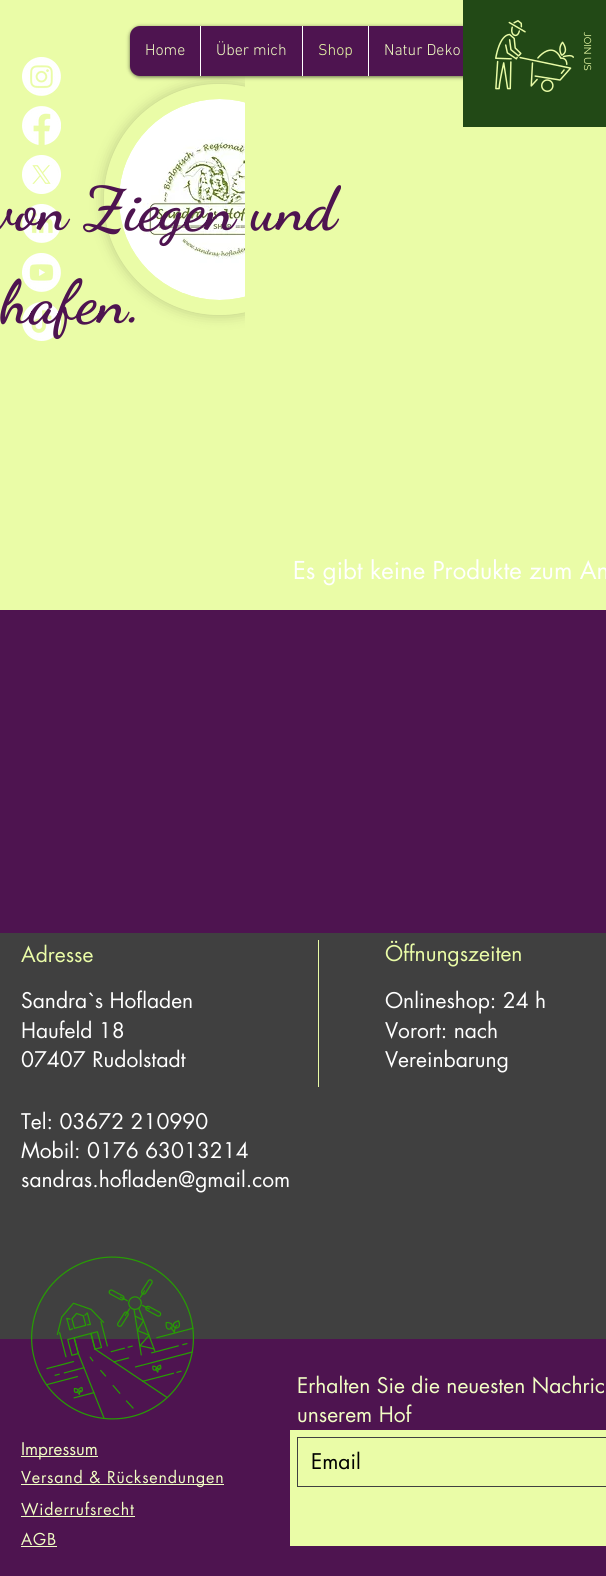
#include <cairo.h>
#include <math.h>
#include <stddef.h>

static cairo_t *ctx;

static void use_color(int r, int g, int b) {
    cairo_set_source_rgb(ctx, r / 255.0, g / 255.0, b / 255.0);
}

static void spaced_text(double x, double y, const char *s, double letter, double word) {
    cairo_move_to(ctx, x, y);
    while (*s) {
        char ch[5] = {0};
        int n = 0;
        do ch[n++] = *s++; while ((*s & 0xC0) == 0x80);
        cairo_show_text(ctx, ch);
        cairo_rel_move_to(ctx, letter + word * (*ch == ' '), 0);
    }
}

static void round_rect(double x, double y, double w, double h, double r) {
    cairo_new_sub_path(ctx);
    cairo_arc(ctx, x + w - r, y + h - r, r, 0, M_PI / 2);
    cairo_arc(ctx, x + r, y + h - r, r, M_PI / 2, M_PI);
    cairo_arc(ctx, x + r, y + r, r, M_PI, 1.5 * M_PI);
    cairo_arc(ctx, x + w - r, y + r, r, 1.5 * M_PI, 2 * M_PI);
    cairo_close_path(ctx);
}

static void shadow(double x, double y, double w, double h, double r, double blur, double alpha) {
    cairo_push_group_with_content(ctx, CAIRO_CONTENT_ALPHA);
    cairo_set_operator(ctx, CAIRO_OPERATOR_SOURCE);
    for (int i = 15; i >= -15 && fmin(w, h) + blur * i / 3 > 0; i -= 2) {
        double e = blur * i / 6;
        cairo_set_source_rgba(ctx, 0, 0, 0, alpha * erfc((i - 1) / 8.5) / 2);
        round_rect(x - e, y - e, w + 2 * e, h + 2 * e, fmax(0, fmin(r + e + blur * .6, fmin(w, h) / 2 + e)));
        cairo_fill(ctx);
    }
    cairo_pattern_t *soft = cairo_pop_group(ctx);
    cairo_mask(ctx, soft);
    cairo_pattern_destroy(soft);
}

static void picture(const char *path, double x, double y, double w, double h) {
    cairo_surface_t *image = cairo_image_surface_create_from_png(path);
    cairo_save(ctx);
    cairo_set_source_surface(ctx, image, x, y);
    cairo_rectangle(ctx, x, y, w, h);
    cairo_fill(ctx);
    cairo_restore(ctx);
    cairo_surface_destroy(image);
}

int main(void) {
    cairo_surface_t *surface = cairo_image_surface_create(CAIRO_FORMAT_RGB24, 606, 1576);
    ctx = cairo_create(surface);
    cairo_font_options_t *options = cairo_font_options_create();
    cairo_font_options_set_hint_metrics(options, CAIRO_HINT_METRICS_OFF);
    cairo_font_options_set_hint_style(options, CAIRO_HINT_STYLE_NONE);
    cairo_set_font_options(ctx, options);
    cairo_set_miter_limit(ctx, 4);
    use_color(78, 20, 80);
    cairo_paint(ctx);
    use_color(234, 252, 167);
    cairo_rectangle(ctx, 0, 0, 245, 610);
    cairo_fill(ctx);
    picture("img1.png", 22, 57, 39, 39);
    picture("img2.png", 22, 106, 39, 39);
    picture("img3.png", 22, 155, 39, 39);
    picture("img4.png", 22, 204, 39, 39);
    picture("img5.png", 22, 253, 39, 39);
    picture("img6.png", 22, 302, 39, 39);
    cairo_save(ctx);
    cairo_set_fill_rule(ctx, CAIRO_FILL_RULE_EVEN_ODD);
    cairo_new_path(ctx);
    cairo_move_to(ctx, 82, 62);
    cairo_line_to(ctx, 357, 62);
    cairo_line_to(ctx, 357, 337);
    cairo_line_to(ctx, 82, 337);
    cairo_close_path(ctx);
    cairo_move_to(ctx, 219.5, 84);
    cairo_curve_to(ctx, 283.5, 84, 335, 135.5, 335, 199.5);
    cairo_curve_to(ctx, 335, 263.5, 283.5, 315, 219.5, 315);
    cairo_curve_to(ctx, 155.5, 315, 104, 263.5, 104, 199.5);
    cairo_curve_to(ctx, 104, 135.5, 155.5, 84, 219.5, 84);
    cairo_close_path(ctx);
    cairo_clip(ctx);
    use_color(0, 0, 0);
    shadow(104, 84, 231, 231, 115.5, 7, 0.2);
    cairo_restore(ctx);
    picture("img7.png", 119, 99, 126, 201);
    cairo_rectangle(ctx, 245, 0, 361, 610);
    cairo_fill(ctx);
    use_color(0, 0, 0);
    shadow(130, 27, 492, 50, 10, 2, 0.6);
    use_color(78, 20, 80);
    round_rect(130, 26, 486, 50, 10);
    cairo_fill(ctx);
    cairo_select_font_face(ctx, "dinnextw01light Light", CAIRO_FONT_SLANT_NORMAL, CAIRO_FONT_WEIGHT_NORMAL);
    cairo_set_font_size(ctx, 16);
    use_color(241, 254, 196);
    cairo_move_to(ctx, 145, 55);
    cairo_show_text(ctx, "Home");
    use_color(255, 255, 255);
    cairo_rectangle(ctx, 200, 26, 1, 50);
    cairo_fill(ctx);
    use_color(241, 254, 196);
    cairo_move_to(ctx, 216, 55);
    cairo_show_text(ctx, "Über mich");
    use_color(255, 255, 255);
    cairo_rectangle(ctx, 302, 26, 1, 50);
    cairo_fill(ctx);
    use_color(234, 252, 167);
    cairo_move_to(ctx, 318, 55);
    cairo_show_text(ctx, "Shop");
    use_color(255, 255, 255);
    cairo_rectangle(ctx, 368, 26, 1, 50);
    cairo_fill(ctx);
    use_color(241, 254, 196);
    cairo_move_to(ctx, 384, 55);
    cairo_show_text(ctx, "Natur Deko");
    cairo_select_font_face(ctx, "Dancing Script", CAIRO_FONT_SLANT_NORMAL, CAIRO_FONT_WEIGHT_BOLD);
    cairo_set_font_size(ctx, 61);
    use_color(78, 20, 80);
    cairo_move_to(ctx, -9, 229);
    cairo_show_text(ctx, "von Ziegen und");
    cairo_move_to(ctx, 0, 322);
    cairo_show_text(ctx, "hafen.");
    use_color(34, 73, 22);
    cairo_rectangle(ctx, 463, 0, 143, 127);
    cairo_fill(ctx);
    picture("img8.png", 495, 20, 79, 72);
    cairo_select_font_face(ctx, "Raleway", CAIRO_FONT_SLANT_NORMAL, CAIRO_FONT_WEIGHT_NORMAL);
    cairo_set_font_size(ctx, 10);
    use_color(234, 252, 167);
    cairo_save(ctx);
    cairo_translate(ctx, 584, 32);
    cairo_rotate(ctx, 90 * M_PI / 180);
    cairo_move_to(ctx, 0, 0);
    cairo_show_text(ctx, "JOIN US");
    cairo_restore(ctx);
    cairo_select_font_face(ctx, "futura", CAIRO_FONT_SLANT_NORMAL, CAIRO_FONT_WEIGHT_NORMAL);
    cairo_set_font_size(ctx, 24);
    use_color(255, 255, 255);
    cairo_move_to(ctx, 293, 579);
    cairo_show_text(ctx, "Es gibt keine Produkte zum An");
    use_color(64, 64, 64);
    cairo_rectangle(ctx, 0, 933, 606, 406);
    cairo_fill(ctx);
    cairo_set_font_size(ctx, 21);
    use_color(234, 252, 167);
    cairo_move_to(ctx, 21, 962);
    cairo_show_text(ctx, "Adresse");
    cairo_rectangle(ctx, 318, 940, 1, 147);
    cairo_fill(ctx);
    cairo_move_to(ctx, 385, 961);
    cairo_show_text(ctx, "Öffnungszeiten");
    use_color(255, 255, 255);
    cairo_move_to(ctx, 21, 1008);
    cairo_show_text(ctx, "Sandra`s Hofladen");
    cairo_move_to(ctx, 21, 1038);
    cairo_show_text(ctx, "Haufeld 18");
    cairo_move_to(ctx, 21, 1067);
    cairo_show_text(ctx, "07407 Rudolstadt");
    cairo_move_to(ctx, 385, 1008);
    cairo_show_text(ctx, "Onlineshop: 24 h");
    cairo_move_to(ctx, 385, 1038);
    cairo_show_text(ctx, "Vorort: nach");
    cairo_move_to(ctx, 385, 1067);
    cairo_show_text(ctx, "Vereinbarung");
    cairo_move_to(ctx, 21, 1129);
    cairo_show_text(ctx, "Tel: 03672 210990");
    cairo_move_to(ctx, 21, 1158);
    cairo_show_text(ctx, "Mobil: 0176 63013214");
    cairo_move_to(ctx, 21, 1187);
    cairo_show_text(ctx, "sandras.hofladen@gmail.com");
    picture("img9.png", 31, 1256, 163, 164);
    use_color(241, 254, 196);
    cairo_move_to(ctx, 297, 1393);
    cairo_show_text(ctx, "Erhalten Sie die neuesten Nachric");
    cairo_move_to(ctx, 297, 1422);
    cairo_show_text(ctx, "unserem Hof");
    cairo_rectangle(ctx, 21, 1456, 77, 1);
    cairo_fill(ctx);
    cairo_set_font_size(ctx, 17);
    cairo_move_to(ctx, 21, 1455);
    cairo_show_text(ctx, "Impressum");
    use_color(234, 252, 167);
    cairo_rectangle(ctx, 290, 1430, 316, 116);
    cairo_fill(ctx);
    cairo_rectangle(ctx, 297.5, 1437.5, 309, 49);
    use_color(64, 64, 64);
    cairo_set_line_width(ctx, 1);
    cairo_stroke(ctx);
    cairo_set_font_size(ctx, 21);
    use_color(0, 0, 0);
    cairo_move_to(ctx, 311, 1469);
    cairo_show_text(ctx, "Email");
    use_color(241, 254, 196);
    cairo_rectangle(ctx, 21, 1484, 203, 1);
    cairo_fill(ctx);
    cairo_set_font_size(ctx, 16);
    spaced_text(21, 1483, "Versand & Rücksendungen", 0.8, 0);
    spaced_text(21, 1515, "Widerrufsrecht", 0.8, 0);
    cairo_rectangle(ctx, 21, 1516, 114, 1);
    cairo_fill(ctx);
    spaced_text(21, 1545, "AGB", 0.8, 0);
    cairo_rectangle(ctx, 21, 1546, 36, 1);
    cairo_fill(ctx);
    cairo_surface_write_to_png(surface, "result.png");
    cairo_font_options_destroy(options);
    cairo_destroy(ctx);
    cairo_surface_destroy(surface);
    return 0;
}
